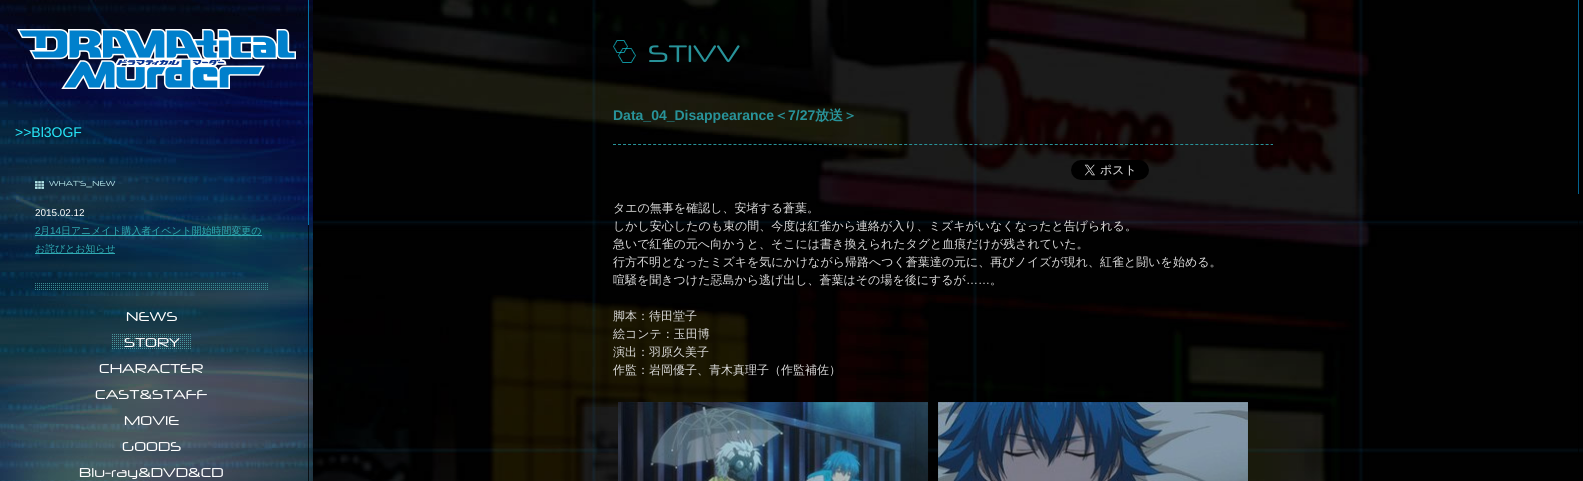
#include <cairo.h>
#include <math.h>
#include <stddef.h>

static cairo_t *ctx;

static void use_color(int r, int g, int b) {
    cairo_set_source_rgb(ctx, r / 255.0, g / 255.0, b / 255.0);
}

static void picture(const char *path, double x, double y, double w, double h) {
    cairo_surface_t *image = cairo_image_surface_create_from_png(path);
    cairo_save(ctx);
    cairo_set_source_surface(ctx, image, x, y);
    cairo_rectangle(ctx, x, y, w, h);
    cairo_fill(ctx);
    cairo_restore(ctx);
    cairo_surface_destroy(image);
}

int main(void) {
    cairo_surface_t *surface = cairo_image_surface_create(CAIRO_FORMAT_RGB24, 1583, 481);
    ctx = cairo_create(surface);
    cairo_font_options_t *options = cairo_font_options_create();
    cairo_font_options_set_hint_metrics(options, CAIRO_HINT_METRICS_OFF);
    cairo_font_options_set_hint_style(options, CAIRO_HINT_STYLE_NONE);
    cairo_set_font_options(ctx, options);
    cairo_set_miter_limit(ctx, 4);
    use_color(255, 255, 255);
    cairo_paint(ctx);
    picture("img1.png", 0, 0, 313, 481);
    picture("img2.png", 17, 29, 279, 60);
    cairo_select_font_face(ctx, "Liberation Sans", CAIRO_FONT_SLANT_NORMAL, CAIRO_FONT_WEIGHT_NORMAL);
    cairo_set_font_size(ctx, 14);
    use_color(38, 233, 251);
    cairo_move_to(ctx, 15, 137);
    cairo_show_text(ctx, ">>Bl3OGF");
    picture("img3.png", 35, 181, 9, 8);
    cairo_select_font_face(ctx, "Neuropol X", CAIRO_FONT_SLANT_NORMAL, CAIRO_FONT_WEIGHT_NORMAL);
    cairo_set_font_size(ctx, 8);
    use_color(179, 228, 231);
    cairo_move_to(ctx, 49, 186);
    cairo_show_text(ctx, "WHAT'S_NEW");
    cairo_select_font_face(ctx, "Liberation Sans", CAIRO_FONT_SLANT_NORMAL, CAIRO_FONT_WEIGHT_NORMAL);
    cairo_set_font_size(ctx, 9.9);
    use_color(255, 255, 255);
    cairo_move_to(ctx, 35, 216);
    cairo_show_text(ctx, "2015.02.12");
    use_color(47, 171, 179);
    cairo_move_to(ctx, 35, 234);
    cairo_show_text(ctx, "2");
    cairo_rectangle(ctx, 35, 235, 227, 1);
    cairo_fill(ctx);
    cairo_select_font_face(ctx, "WenQuanYi Zen Hei Medium", CAIRO_FONT_SLANT_NORMAL, CAIRO_FONT_WEIGHT_NORMAL);
    cairo_move_to(ctx, 40, 234);
    cairo_show_text(ctx, "月");
    cairo_select_font_face(ctx, "Liberation Sans", CAIRO_FONT_SLANT_NORMAL, CAIRO_FONT_WEIGHT_NORMAL);
    cairo_move_to(ctx, 50, 234);
    cairo_show_text(ctx, "14");
    cairo_select_font_face(ctx, "WenQuanYi Zen Hei Medium", CAIRO_FONT_SLANT_NORMAL, CAIRO_FONT_WEIGHT_NORMAL);
    cairo_move_to(ctx, 61, 234);
    cairo_show_text(ctx, "日アニメイト購入者イベント開始時間変更の");
    cairo_rectangle(ctx, 35, 253, 80, 1);
    cairo_fill(ctx);
    cairo_move_to(ctx, 35, 252);
    cairo_show_text(ctx, "お詫びとお知らせ");
    picture("img4.png", 35, 283, 233, 7);
    cairo_select_font_face(ctx, "Neuropol X", CAIRO_FONT_SLANT_NORMAL, CAIRO_FONT_WEIGHT_NORMAL);
    cairo_set_font_size(ctx, 14);
    use_color(255, 255, 255);
    cairo_move_to(ctx, 126, 321);
    cairo_show_text(ctx, "NEWS");
    picture("img5.png", 112, 334, 79, 15);
    cairo_move_to(ctx, 124, 347);
    cairo_show_text(ctx, "STORY");
    cairo_move_to(ctx, 99, 373);
    cairo_show_text(ctx, "CHARACTER");
    cairo_move_to(ctx, 95, 399);
    cairo_show_text(ctx, "CAST&STAFF");
    cairo_move_to(ctx, 124, 425);
    cairo_show_text(ctx, "MOVIE");
    cairo_move_to(ctx, 122, 451);
    cairo_show_text(ctx, "GOODS");
    cairo_move_to(ctx, 79, 477);
    cairo_show_text(ctx, "Blu-ray&DVD&CD");
    cairo_set_source_rgba(ctx, 0, 0, 0, 0.75);
    cairo_rectangle(ctx, 308, 0, 1, 481);
    cairo_fill(ctx);
    cairo_set_source_rgba(ctx, 0.016, 0.592, 0.863, 0.75);
    cairo_rectangle(ctx, 308, 0, 1, 225);
    cairo_fill(ctx);
    picture("img6.png", 313, 0, 1270, 481);
    picture("img7.png", 613, 40, 23, 23);
    cairo_set_font_size(ctx, 26);
    use_color(40, 147, 154);
    cairo_move_to(ctx, 648, 62);
    cairo_show_text(ctx, "ST1VV");
    cairo_new_path(ctx);
    cairo_move_to(ctx, 613, 144.5);
    cairo_line_to(ctx, 1273, 144.5);
    cairo_set_line_width(ctx, 1);
    cairo_set_dash(ctx, (double[]){3, 2.02}, 2, 0);
    cairo_stroke(ctx);
    cairo_select_font_face(ctx, "Liberation Sans", CAIRO_FONT_SLANT_NORMAL, CAIRO_FONT_WEIGHT_BOLD);
    cairo_set_font_size(ctx, 14);
    cairo_move_to(ctx, 613, 120);
    cairo_show_text(ctx, "Data_04_Disappearance");
    cairo_select_font_face(ctx, "WenQuanYi Zen Hei", CAIRO_FONT_SLANT_NORMAL, CAIRO_FONT_WEIGHT_BOLD);
    cairo_move_to(ctx, 774, 120);
    cairo_show_text(ctx, "＜");
    cairo_select_font_face(ctx, "Liberation Sans", CAIRO_FONT_SLANT_NORMAL, CAIRO_FONT_WEIGHT_BOLD);
    cairo_move_to(ctx, 788, 120);
    cairo_show_text(ctx, "7/27");
    cairo_select_font_face(ctx, "WenQuanYi Zen Hei", CAIRO_FONT_SLANT_NORMAL, CAIRO_FONT_WEIGHT_BOLD);
    cairo_move_to(ctx, 815, 120);
    cairo_show_text(ctx, "放送＞");
    picture("img8.png", 1071, 160, 78, 20);
    cairo_select_font_face(ctx, "WenQuanYi Zen Hei Medium", CAIRO_FONT_SLANT_NORMAL, CAIRO_FONT_WEIGHT_NORMAL);
    cairo_set_font_size(ctx, 12);
    use_color(219, 219, 219);
    cairo_move_to(ctx, 613, 212);
    cairo_show_text(ctx, "タエの無事を確認し、安堵する蒼葉。");
    cairo_move_to(ctx, 613, 230);
    cairo_show_text(ctx, "しかし安心したのも束の間、今度は紅雀から連絡が入り、ミズキがいなくなったと告げられる。");
    cairo_move_to(ctx, 613, 248);
    cairo_show_text(ctx, "急いで紅雀の元へ向かうと、そこには書き換えられたタグと血痕だけが残されていた。");
    cairo_move_to(ctx, 613, 266);
    cairo_show_text(ctx, "行方不明となったミズキを気にかけながら帰路へつく蒼葉達の元に、再びノイズが現れ、紅雀と闘いを始める。");
    cairo_move_to(ctx, 613, 284);
    cairo_show_text(ctx, "喧騒を聞きつけた惡島から逃げ出し、蒼葉はその場を後にするが");
    cairo_select_font_face(ctx, "Liberation Sans", CAIRO_FONT_SLANT_NORMAL, CAIRO_FONT_WEIGHT_NORMAL);
    cairo_move_to(ctx, 966, 284);
    cairo_show_text(ctx, "……");
    cairo_select_font_face(ctx, "WenQuanYi Zen Hei Medium", CAIRO_FONT_SLANT_NORMAL, CAIRO_FONT_WEIGHT_NORMAL);
    cairo_move_to(ctx, 990, 284);
    cairo_show_text(ctx, "。");
    cairo_move_to(ctx, 613, 320);
    cairo_show_text(ctx, "脚本：待田堂子");
    cairo_move_to(ctx, 613, 338);
    cairo_show_text(ctx, "絵コンテ：玉田博");
    cairo_move_to(ctx, 613, 356);
    cairo_show_text(ctx, "演出：羽原久美子");
    cairo_move_to(ctx, 613, 374);
    cairo_show_text(ctx, "作監：岩岡優子、青木真理子（作監補佐）");
    picture("img9.png", 618, 402, 310, 79);
    picture("img10.png", 938, 402, 310, 79);
    use_color(3, 98, 142);
    cairo_rectangle(ctx, 1578, 0, 1, 194);
    cairo_fill(ctx);
    cairo_set_source_rgba(ctx, 0, 0, 0, 0.75);
    cairo_rectangle(ctx, 1578, 220, 1, 233);
    cairo_fill(ctx);
    cairo_surface_write_to_png(surface, "result.png");
    cairo_font_options_destroy(options);
    cairo_destroy(ctx);
    cairo_surface_destroy(surface);
    return 0;
}
